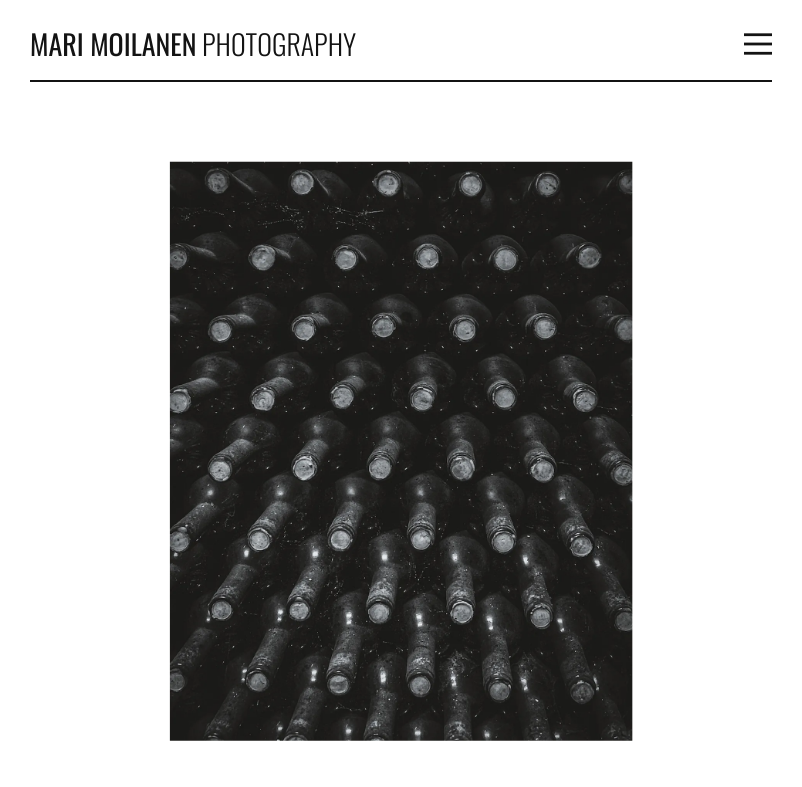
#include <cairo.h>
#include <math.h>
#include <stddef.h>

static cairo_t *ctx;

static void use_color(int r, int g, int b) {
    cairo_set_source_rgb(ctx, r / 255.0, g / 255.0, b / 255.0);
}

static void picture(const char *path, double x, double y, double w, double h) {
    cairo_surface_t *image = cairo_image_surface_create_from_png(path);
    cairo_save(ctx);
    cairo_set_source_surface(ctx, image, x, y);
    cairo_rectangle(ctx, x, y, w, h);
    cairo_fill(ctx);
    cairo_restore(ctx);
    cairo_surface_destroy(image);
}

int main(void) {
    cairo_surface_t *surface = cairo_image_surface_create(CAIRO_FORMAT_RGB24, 802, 787);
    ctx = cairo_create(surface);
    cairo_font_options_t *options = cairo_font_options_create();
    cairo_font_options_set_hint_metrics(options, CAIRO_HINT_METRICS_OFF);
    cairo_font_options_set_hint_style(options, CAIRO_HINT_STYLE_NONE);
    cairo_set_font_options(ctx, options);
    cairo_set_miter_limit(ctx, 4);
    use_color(255, 255, 255);
    cairo_paint(ctx);
    use_color(19, 19, 19);
    cairo_rectangle(ctx, 30, 80, 742, 2);
    cairo_fill(ctx);
    cairo_select_font_face(ctx, "Oswald", CAIRO_FONT_SLANT_NORMAL, CAIRO_FONT_WEIGHT_NORMAL);
    cairo_set_font_size(ctx, 28);
    cairo_move_to(ctx, 30, 56);
    cairo_show_text(ctx, "MARI MOILANEN");
    cairo_select_font_face(ctx, "Oswald Light", CAIRO_FONT_SLANT_NORMAL, CAIRO_FONT_WEIGHT_NORMAL);
    cairo_move_to(ctx, 202, 56);
    cairo_show_text(ctx, "PHOTOGRAPHY");
    picture("img1.png", 744, 33, 28, 22);
    picture("img2.png", 169, 161, 464, 580);
    cairo_surface_write_to_png(surface, "result.png");
    cairo_font_options_destroy(options);
    cairo_destroy(ctx);
    cairo_surface_destroy(surface);
    return 0;
}
